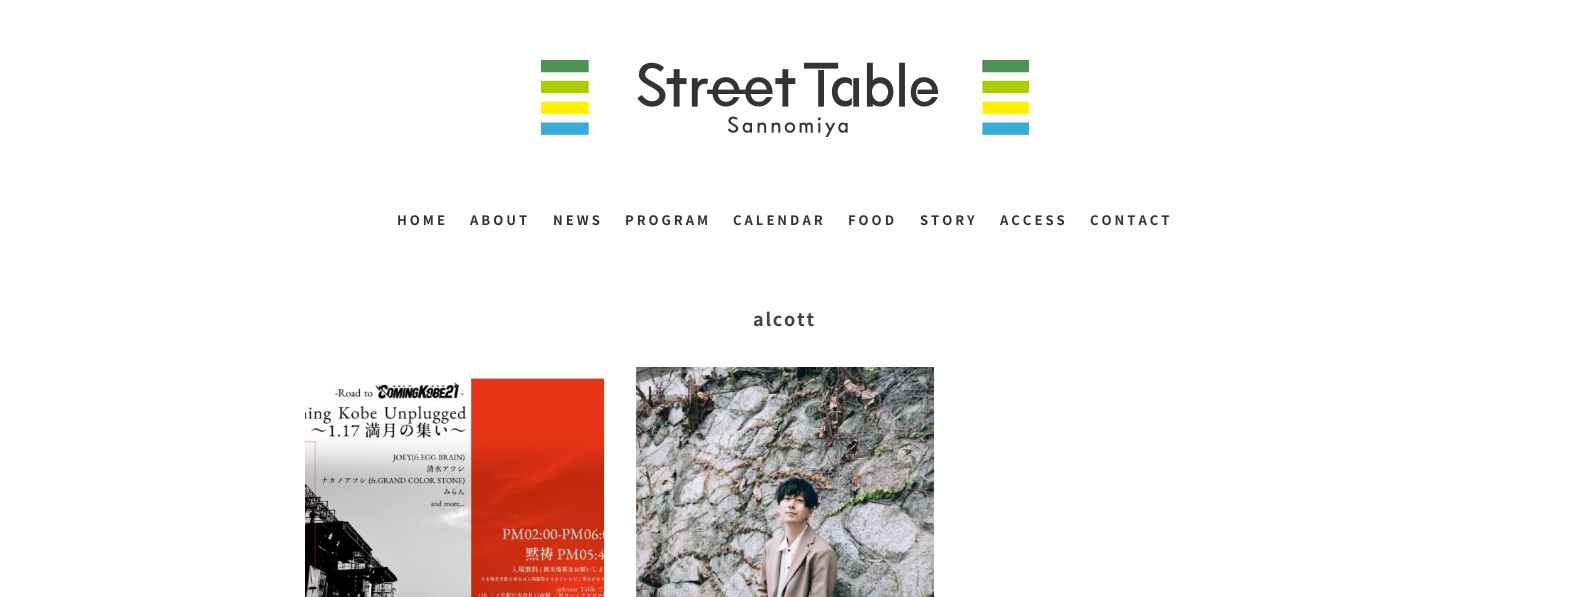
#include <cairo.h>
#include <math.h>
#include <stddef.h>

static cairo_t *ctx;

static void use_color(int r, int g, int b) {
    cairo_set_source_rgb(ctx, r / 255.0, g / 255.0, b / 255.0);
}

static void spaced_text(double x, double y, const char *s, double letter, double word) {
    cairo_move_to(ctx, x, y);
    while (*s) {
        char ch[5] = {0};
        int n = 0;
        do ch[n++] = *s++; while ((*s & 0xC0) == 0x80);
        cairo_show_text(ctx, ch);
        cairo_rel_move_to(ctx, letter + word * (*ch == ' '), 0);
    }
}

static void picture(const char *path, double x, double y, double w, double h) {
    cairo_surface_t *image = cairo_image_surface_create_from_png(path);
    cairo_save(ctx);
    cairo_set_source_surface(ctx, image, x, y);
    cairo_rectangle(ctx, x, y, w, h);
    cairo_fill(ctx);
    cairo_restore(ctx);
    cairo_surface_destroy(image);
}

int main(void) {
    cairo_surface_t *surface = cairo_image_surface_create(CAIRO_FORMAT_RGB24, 1569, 597);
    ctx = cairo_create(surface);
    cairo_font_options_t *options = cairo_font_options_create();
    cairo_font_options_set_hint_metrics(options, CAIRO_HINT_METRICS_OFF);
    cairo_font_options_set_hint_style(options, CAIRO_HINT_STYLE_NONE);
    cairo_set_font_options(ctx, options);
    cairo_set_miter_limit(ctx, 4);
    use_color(255, 255, 255);
    cairo_paint(ctx);
    picture("img1.png", 541, 60, 488, 77);
    cairo_select_font_face(ctx, "Noto Sans JP", CAIRO_FONT_SLANT_NORMAL, CAIRO_FONT_WEIGHT_BOLD);
    cairo_set_font_size(ctx, 13);
    use_color(51, 51, 51);
    spaced_text(397, 225, "HOME", 3, 0);
    spaced_text(470, 225, "ABOUT", 3, 0);
    spaced_text(553, 225, "NEWS", 3, 0);
    spaced_text(625, 225, "PROGRAM", 3, 0);
    spaced_text(733, 225, "CALENDAR", 3, 0);
    spaced_text(848, 225, "FOOD", 3, 0);
    spaced_text(920, 225, "STORY", 3, 0);
    spaced_text(1000, 225, "ACCESS", 3, 0);
    spaced_text(1090, 225, "CONTACT", 3, 0);
    cairo_set_font_size(ctx, 18);
    use_color(68, 68, 68);
    spaced_text(753, 326, "alcott", 1.75, 0);
    picture("img2.png", 305, 378, 299, 219);
    picture("img3.png", 636, 367, 298, 230);
    cairo_surface_write_to_png(surface, "result.png");
    cairo_font_options_destroy(options);
    cairo_destroy(ctx);
    cairo_surface_destroy(surface);
    return 0;
}
